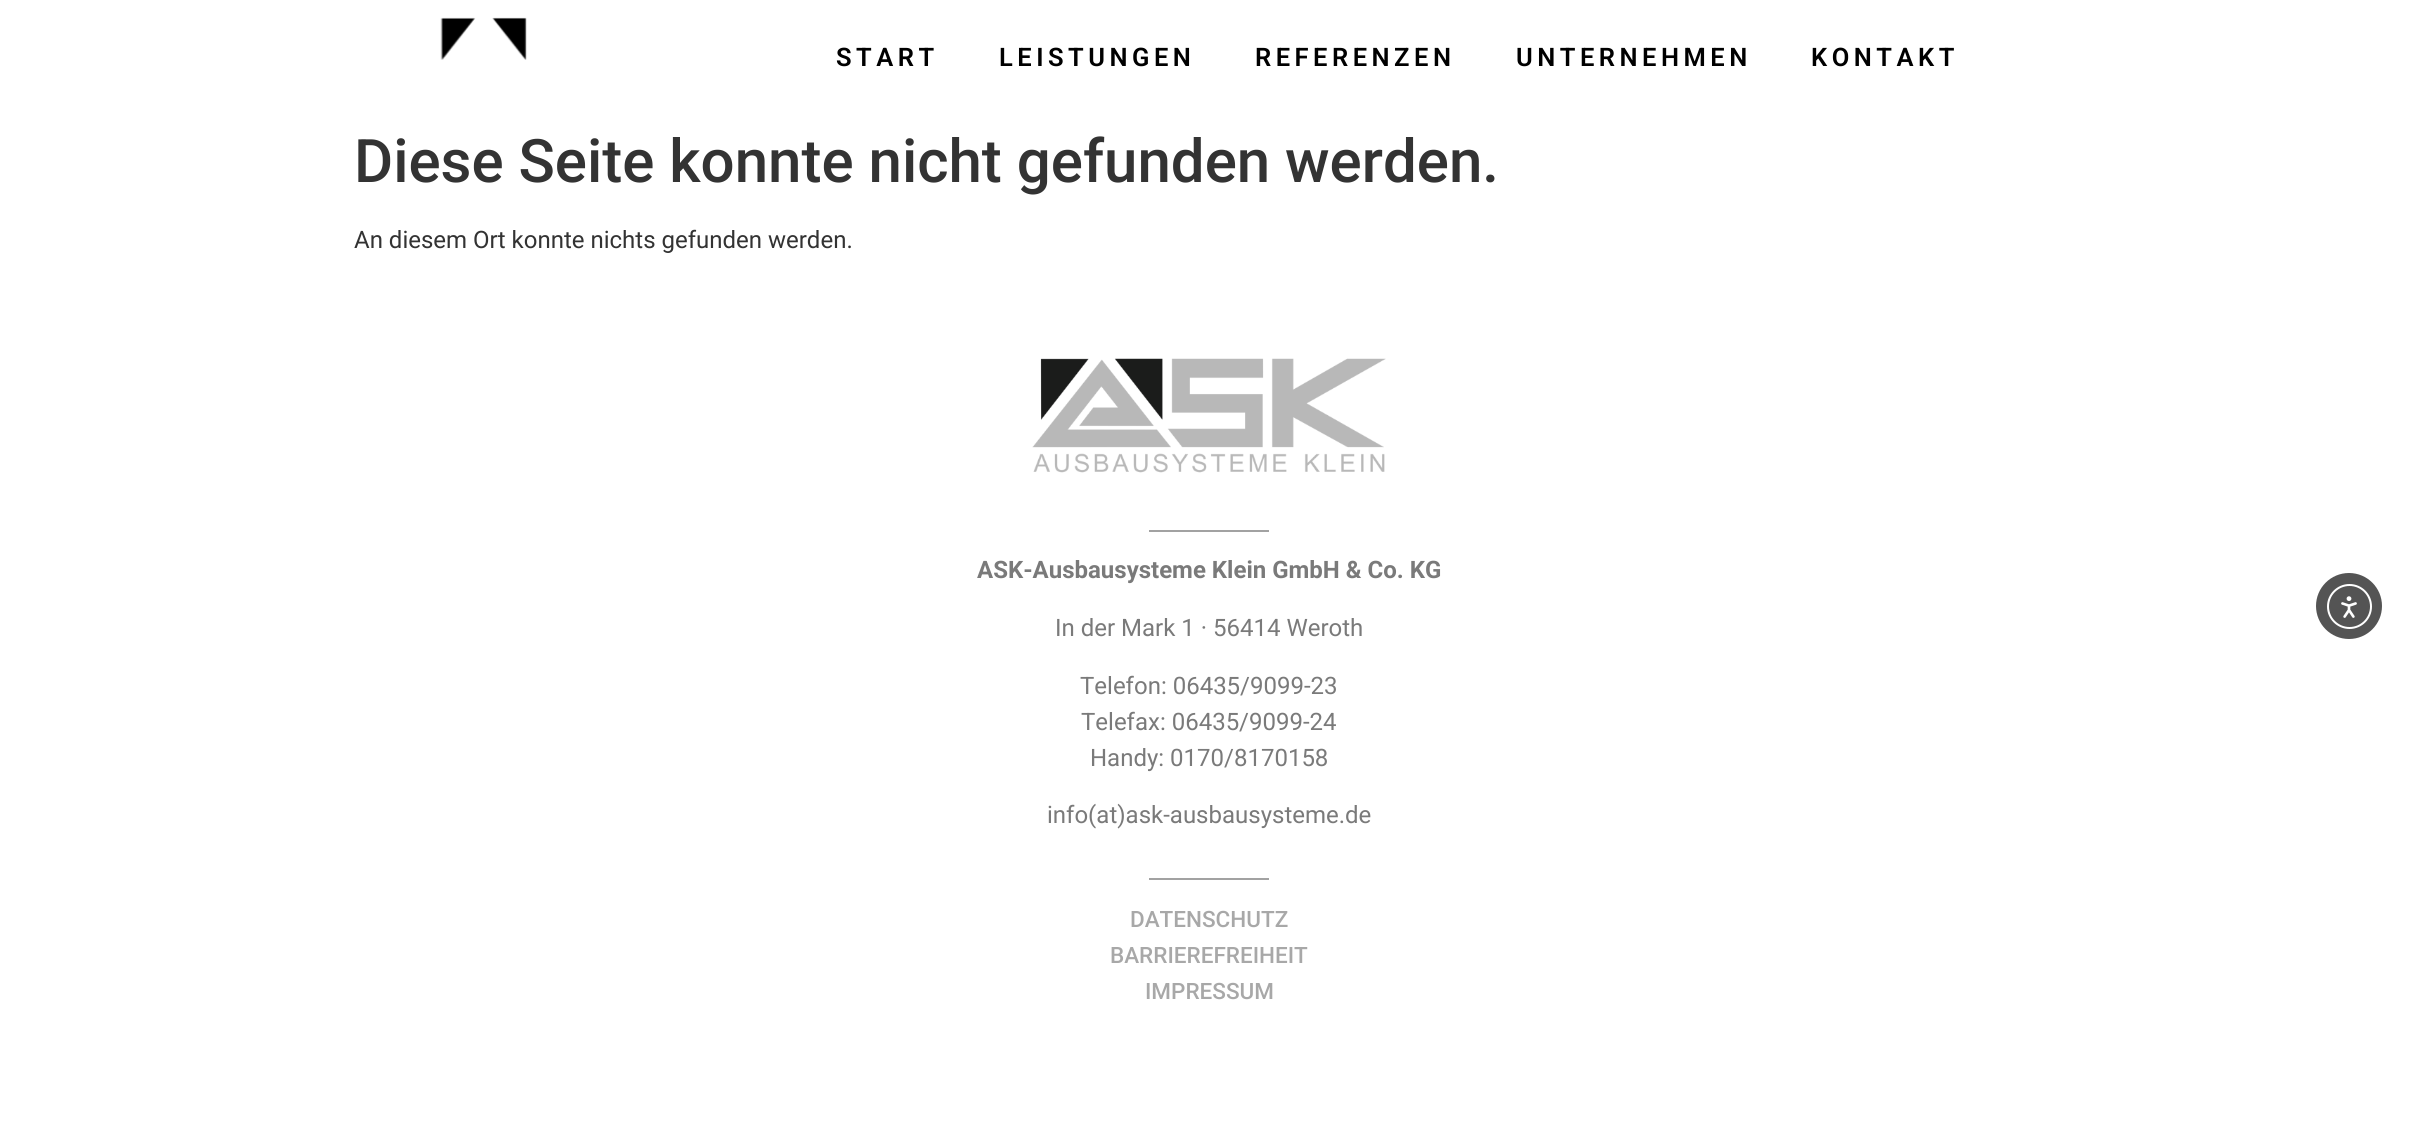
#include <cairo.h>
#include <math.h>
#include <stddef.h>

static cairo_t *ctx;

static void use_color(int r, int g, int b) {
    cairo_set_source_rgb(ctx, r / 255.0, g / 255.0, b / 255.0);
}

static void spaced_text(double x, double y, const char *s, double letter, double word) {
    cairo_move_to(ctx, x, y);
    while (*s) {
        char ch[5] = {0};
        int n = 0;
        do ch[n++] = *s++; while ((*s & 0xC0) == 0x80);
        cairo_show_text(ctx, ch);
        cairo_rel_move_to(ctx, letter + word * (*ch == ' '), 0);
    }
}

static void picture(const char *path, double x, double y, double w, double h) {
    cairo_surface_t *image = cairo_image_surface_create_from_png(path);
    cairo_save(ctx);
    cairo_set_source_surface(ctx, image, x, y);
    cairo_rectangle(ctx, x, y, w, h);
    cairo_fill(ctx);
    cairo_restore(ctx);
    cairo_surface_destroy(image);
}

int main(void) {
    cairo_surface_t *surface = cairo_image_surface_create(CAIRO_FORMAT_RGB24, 2417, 1145);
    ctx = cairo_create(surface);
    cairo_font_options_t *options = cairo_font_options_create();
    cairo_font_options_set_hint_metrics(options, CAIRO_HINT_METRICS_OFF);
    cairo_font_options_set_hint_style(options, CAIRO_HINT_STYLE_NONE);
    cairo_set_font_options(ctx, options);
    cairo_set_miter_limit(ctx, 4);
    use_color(255, 255, 255);
    cairo_paint(ctx);
    picture("img1.png", 440, 17, 87, 43);
    cairo_select_font_face(ctx, "Roboto SemiBold", CAIRO_FONT_SLANT_NORMAL, CAIRO_FONT_WEIGHT_NORMAL);
    cairo_set_font_size(ctx, 25.5);
    use_color(0, 0, 0);
    spaced_text(836, 66, "START", 4.5, 0);
    spaced_text(999, 66, "LEISTUNGEN", 4.5, 0);
    spaced_text(1255, 66, "REFERENZEN", 4.5, 0);
    spaced_text(1516, 66, "UNTERNEHMEN", 4.5, 0);
    spaced_text(1811, 66, "KONTAKT", 4.5, 0);
    cairo_select_font_face(ctx, "Roboto Medium", CAIRO_FONT_SLANT_NORMAL, CAIRO_FONT_WEIGHT_NORMAL);
    cairo_set_font_size(ctx, 60);
    use_color(51, 51, 51);
    cairo_move_to(ctx, 354, 182);
    cairo_show_text(ctx, "Diese Seite konnte nicht gefunden werden.");
    cairo_select_font_face(ctx, "Roboto", CAIRO_FONT_SLANT_NORMAL, CAIRO_FONT_WEIGHT_NORMAL);
    cairo_set_font_size(ctx, 24);
    cairo_move_to(ctx, 354, 248);
    cairo_show_text(ctx, "An diesem Ort konnte nichts gefunden werden.");
    picture("img2.png", 1032, 358, 354, 115);
    use_color(162, 162, 162);
    cairo_rectangle(ctx, 1149, 530, 120, 2);
    cairo_fill(ctx);
    cairo_select_font_face(ctx, "Roboto", CAIRO_FONT_SLANT_NORMAL, CAIRO_FONT_WEIGHT_BOLD);
    use_color(122, 122, 122);
    cairo_move_to(ctx, 977, 578);
    cairo_show_text(ctx, "ASK-Ausbausysteme Klein GmbH & Co. KG");
    cairo_select_font_face(ctx, "Roboto", CAIRO_FONT_SLANT_NORMAL, CAIRO_FONT_WEIGHT_NORMAL);
    cairo_move_to(ctx, 1055, 636);
    cairo_show_text(ctx, "In der Mark 1 · 56414 Weroth");
    cairo_move_to(ctx, 1080, 694);
    cairo_show_text(ctx, "Telefon: 06435/9099-23");
    cairo_move_to(ctx, 1081, 730);
    cairo_show_text(ctx, "Telefax: 06435/9099-24");
    cairo_move_to(ctx, 1090, 766);
    cairo_show_text(ctx, "Handy: 0170/8170158");
    cairo_move_to(ctx, 1047, 823);
    cairo_show_text(ctx, "info(at)ask-ausbausysteme.de");
    use_color(162, 162, 162);
    cairo_rectangle(ctx, 1149, 878, 120, 2);
    cairo_fill(ctx);
    cairo_select_font_face(ctx, "Roboto Medium", CAIRO_FONT_SLANT_NORMAL, CAIRO_FONT_WEIGHT_NORMAL);
    cairo_set_font_size(ctx, 22.5);
    use_color(168, 168, 168);
    cairo_move_to(ctx, 1130, 927);
    cairo_show_text(ctx, "DATENSCHUTZ");
    cairo_move_to(ctx, 1110, 963);
    cairo_show_text(ctx, "BARRIEREFREIHEIT");
    cairo_move_to(ctx, 1145, 999);
    cairo_show_text(ctx, "IMPRESSUM");
    use_color(84, 84, 84);
    cairo_new_path(ctx);
    cairo_arc(ctx, 2349, 606, 33, 0, 2 * M_PI);
    cairo_fill(ctx);
    cairo_arc(ctx, 2349.5, 606.5, 21.5, 0, 2 * M_PI);
    use_color(255, 255, 255);
    cairo_stroke(ctx);
    picture("img3.png", 2341, 596, 16, 22);
    cairo_surface_write_to_png(surface, "result.png");
    cairo_font_options_destroy(options);
    cairo_destroy(ctx);
    cairo_surface_destroy(surface);
    return 0;
}
